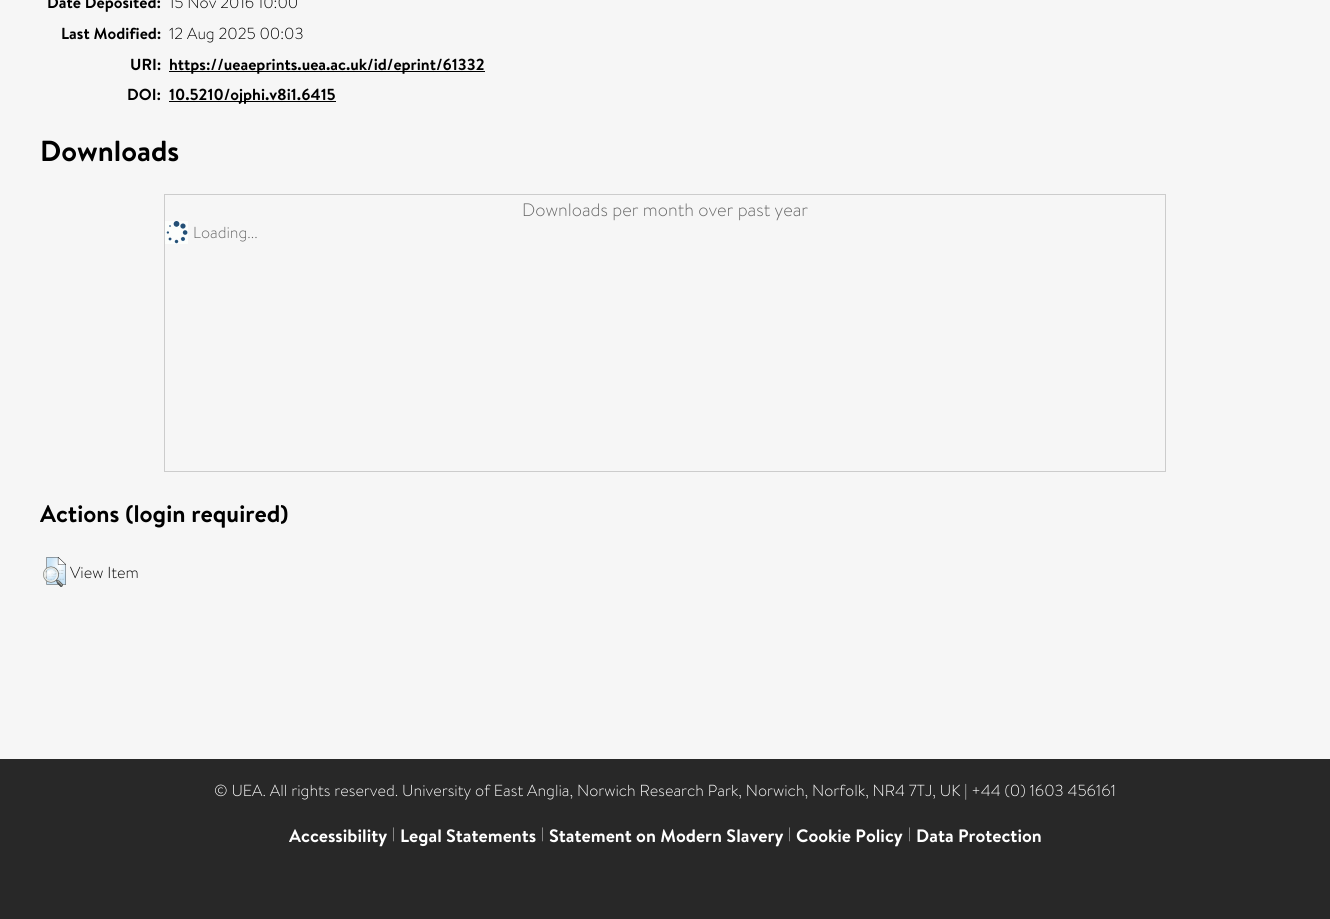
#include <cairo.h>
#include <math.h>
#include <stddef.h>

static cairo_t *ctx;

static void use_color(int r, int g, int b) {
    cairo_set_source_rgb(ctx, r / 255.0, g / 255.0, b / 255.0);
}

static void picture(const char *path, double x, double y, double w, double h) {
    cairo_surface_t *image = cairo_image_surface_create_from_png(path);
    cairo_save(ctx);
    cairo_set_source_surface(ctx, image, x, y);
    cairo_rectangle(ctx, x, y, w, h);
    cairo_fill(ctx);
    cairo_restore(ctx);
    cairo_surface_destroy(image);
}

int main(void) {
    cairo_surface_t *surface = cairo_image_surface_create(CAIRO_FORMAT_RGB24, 1330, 919);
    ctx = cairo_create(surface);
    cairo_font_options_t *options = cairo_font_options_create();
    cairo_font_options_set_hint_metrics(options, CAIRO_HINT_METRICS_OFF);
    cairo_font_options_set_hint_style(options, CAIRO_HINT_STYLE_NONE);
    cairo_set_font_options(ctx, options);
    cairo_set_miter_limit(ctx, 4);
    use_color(246, 246, 246);
    cairo_paint(ctx);
    cairo_select_font_face(ctx, "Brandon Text", CAIRO_FONT_SLANT_NORMAL, CAIRO_FONT_WEIGHT_BOLD);
    cairo_set_font_size(ctx, 16);
    use_color(0, 0, 0);
    cairo_move_to(ctx, 47, 8);
    cairo_show_text(ctx, "Date Deposited:");
    cairo_select_font_face(ctx, "Brandon Text Light", CAIRO_FONT_SLANT_NORMAL, CAIRO_FONT_WEIGHT_NORMAL);
    cairo_move_to(ctx, 169, 8);
    cairo_show_text(ctx, "15 Nov 2016 10:00");
    cairo_select_font_face(ctx, "Brandon Text", CAIRO_FONT_SLANT_NORMAL, CAIRO_FONT_WEIGHT_BOLD);
    cairo_move_to(ctx, 61, 39);
    cairo_show_text(ctx, "Last Modified:");
    cairo_select_font_face(ctx, "Brandon Text Light", CAIRO_FONT_SLANT_NORMAL, CAIRO_FONT_WEIGHT_NORMAL);
    cairo_move_to(ctx, 169, 39);
    cairo_show_text(ctx, "12 Aug 2025 00:03");
    cairo_select_font_face(ctx, "Brandon Text", CAIRO_FONT_SLANT_NORMAL, CAIRO_FONT_WEIGHT_BOLD);
    cairo_move_to(ctx, 130, 70);
    cairo_show_text(ctx, "URI:");
    cairo_rectangle(ctx, 169, 71, 316, 1);
    cairo_fill(ctx);
    cairo_move_to(ctx, 169, 70);
    cairo_show_text(ctx, "https://ueaeprints.uea.ac.uk/id/eprint/61332");
    cairo_move_to(ctx, 127, 100);
    cairo_show_text(ctx, "DOI:");
    cairo_rectangle(ctx, 169, 101, 167, 1);
    cairo_fill(ctx);
    cairo_move_to(ctx, 169, 100);
    cairo_show_text(ctx, "10.5210/ojphi.v8i1.6415");
    cairo_set_font_size(ctx, 29);
    cairo_move_to(ctx, 40, 161);
    cairo_show_text(ctx, "Downloads");
    cairo_rectangle(ctx, 164.5, 194.5, 1001, 277);
    use_color(204, 204, 204);
    cairo_set_line_width(ctx, 1);
    cairo_stroke(ctx);
    cairo_select_font_face(ctx, "Brandon Text Light", CAIRO_FONT_SLANT_NORMAL, CAIRO_FONT_WEIGHT_NORMAL);
    cairo_set_font_size(ctx, 18);
    use_color(102, 102, 102);
    cairo_move_to(ctx, 522, 216);
    cairo_show_text(ctx, "Downloads per month over past year");
    picture("img1.png", 165, 221, 23, 23);
    cairo_set_font_size(ctx, 16);
    cairo_move_to(ctx, 193, 238);
    cairo_show_text(ctx, "Loading...");
    cairo_select_font_face(ctx, "Brandon Text", CAIRO_FONT_SLANT_NORMAL, CAIRO_FONT_WEIGHT_BOLD);
    cairo_set_font_size(ctx, 24);
    use_color(0, 0, 0);
    cairo_move_to(ctx, 40, 522);
    cairo_show_text(ctx, "Actions (login required)");
    picture("img2.png", 43, 557, 23, 30);
    cairo_select_font_face(ctx, "Brandon Text Light", CAIRO_FONT_SLANT_NORMAL, CAIRO_FONT_WEIGHT_NORMAL);
    cairo_set_font_size(ctx, 16);
    cairo_move_to(ctx, 70, 578);
    cairo_show_text(ctx, "View Item");
    use_color(40, 40, 40);
    cairo_rectangle(ctx, 0, 759, 1330, 160);
    cairo_fill(ctx);
    use_color(255, 255, 255);
    cairo_move_to(ctx, 214, 796);
    cairo_show_text(ctx, "© UEA. All rights reserved. University of East Anglia, Norwich Research Park, Norwich, Norfolk, NR4 7TJ, UK | +44 (0) 1603 456161");
    cairo_select_font_face(ctx, "Brandon Text", CAIRO_FONT_SLANT_NORMAL, CAIRO_FONT_WEIGHT_BOLD);
    cairo_set_font_size(ctx, 18);
    cairo_move_to(ctx, 289, 842);
    cairo_show_text(ctx, "Accessibility");
    cairo_select_font_face(ctx, "Brandon Text Light", CAIRO_FONT_SLANT_NORMAL, CAIRO_FONT_WEIGHT_NORMAL);
    cairo_set_font_size(ctx, 14);
    cairo_move_to(ctx, 392, 838);
    cairo_show_text(ctx, "|");
    cairo_select_font_face(ctx, "Brandon Text", CAIRO_FONT_SLANT_NORMAL, CAIRO_FONT_WEIGHT_BOLD);
    cairo_set_font_size(ctx, 18);
    cairo_move_to(ctx, 400, 842);
    cairo_show_text(ctx, "Legal Statements");
    cairo_select_font_face(ctx, "Brandon Text Light", CAIRO_FONT_SLANT_NORMAL, CAIRO_FONT_WEIGHT_NORMAL);
    cairo_set_font_size(ctx, 14);
    cairo_move_to(ctx, 541, 838);
    cairo_show_text(ctx, "|");
    cairo_select_font_face(ctx, "Brandon Text", CAIRO_FONT_SLANT_NORMAL, CAIRO_FONT_WEIGHT_BOLD);
    cairo_set_font_size(ctx, 18);
    cairo_move_to(ctx, 549, 842);
    cairo_show_text(ctx, "Statement on Modern Slavery");
    cairo_select_font_face(ctx, "Brandon Text Light", CAIRO_FONT_SLANT_NORMAL, CAIRO_FONT_WEIGHT_NORMAL);
    cairo_set_font_size(ctx, 14);
    cairo_move_to(ctx, 788, 838);
    cairo_show_text(ctx, "|");
    cairo_select_font_face(ctx, "Brandon Text", CAIRO_FONT_SLANT_NORMAL, CAIRO_FONT_WEIGHT_BOLD);
    cairo_set_font_size(ctx, 18);
    cairo_move_to(ctx, 796, 842);
    cairo_show_text(ctx, "Cookie Policy");
    cairo_select_font_face(ctx, "Brandon Text Light", CAIRO_FONT_SLANT_NORMAL, CAIRO_FONT_WEIGHT_NORMAL);
    cairo_set_font_size(ctx, 14);
    cairo_move_to(ctx, 908, 838);
    cairo_show_text(ctx, "|");
    cairo_select_font_face(ctx, "Brandon Text", CAIRO_FONT_SLANT_NORMAL, CAIRO_FONT_WEIGHT_BOLD);
    cairo_set_font_size(ctx, 18);
    cairo_move_to(ctx, 916, 842);
    cairo_show_text(ctx, "Data Protection");
    cairo_surface_write_to_png(surface, "result.png");
    cairo_font_options_destroy(options);
    cairo_destroy(ctx);
    cairo_surface_destroy(surface);
    return 0;
}
